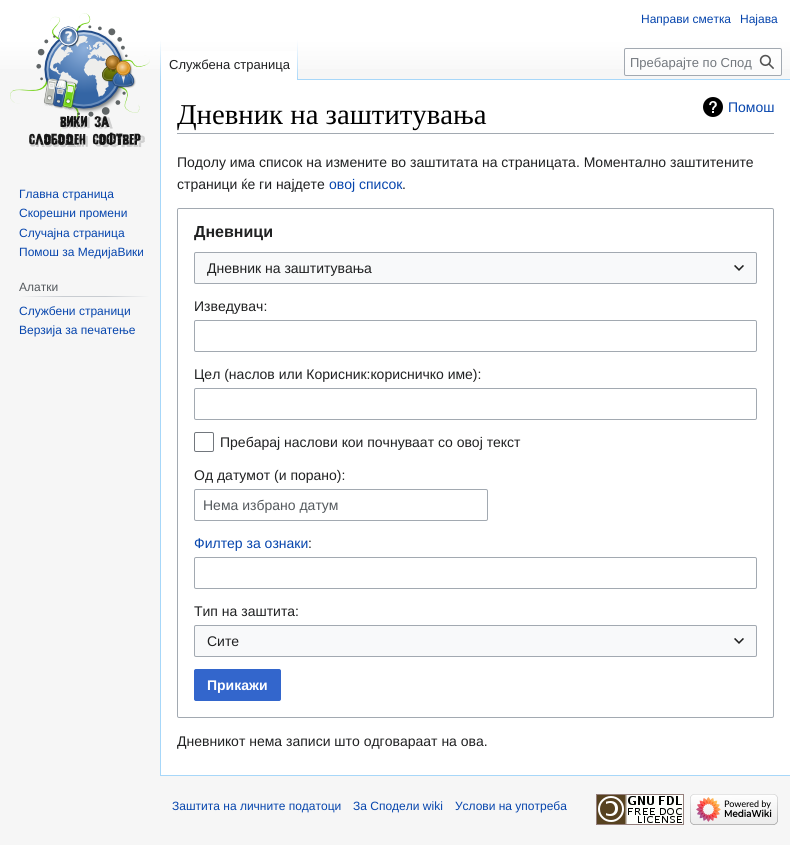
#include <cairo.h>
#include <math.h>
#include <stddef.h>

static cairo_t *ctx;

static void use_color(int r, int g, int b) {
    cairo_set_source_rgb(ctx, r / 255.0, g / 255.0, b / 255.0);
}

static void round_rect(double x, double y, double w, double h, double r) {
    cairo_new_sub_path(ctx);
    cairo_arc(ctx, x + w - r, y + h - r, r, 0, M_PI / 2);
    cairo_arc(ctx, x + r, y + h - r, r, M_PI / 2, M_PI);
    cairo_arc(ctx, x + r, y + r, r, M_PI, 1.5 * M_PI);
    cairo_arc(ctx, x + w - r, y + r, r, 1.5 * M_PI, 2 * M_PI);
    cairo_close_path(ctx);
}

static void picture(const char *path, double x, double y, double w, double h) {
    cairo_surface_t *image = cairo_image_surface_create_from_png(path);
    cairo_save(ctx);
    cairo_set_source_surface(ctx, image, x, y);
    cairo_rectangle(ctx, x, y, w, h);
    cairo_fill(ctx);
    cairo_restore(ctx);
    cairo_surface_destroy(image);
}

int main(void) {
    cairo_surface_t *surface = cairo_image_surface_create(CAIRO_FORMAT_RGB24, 790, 845);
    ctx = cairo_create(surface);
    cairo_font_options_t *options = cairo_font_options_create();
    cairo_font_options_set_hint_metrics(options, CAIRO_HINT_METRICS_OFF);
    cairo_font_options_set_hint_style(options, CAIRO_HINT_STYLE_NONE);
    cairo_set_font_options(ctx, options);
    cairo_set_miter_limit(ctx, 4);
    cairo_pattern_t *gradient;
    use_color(246, 246, 246);
    cairo_paint(ctx);
    gradient = cairo_pattern_create_linear(395, 0, 395, 80);
    cairo_pattern_add_color_stop_rgba(gradient, 0.5, 1, 1, 1, 1);
    cairo_pattern_add_color_stop_rgba(gradient, 1, 0.965, 0.965, 0.965, 1);
    cairo_set_source(ctx, gradient);
    cairo_pattern_destroy(gradient);
    cairo_rectangle(ctx, 0, 0, 790, 69);
    cairo_fill(ctx);
    cairo_select_font_face(ctx, "Liberation Sans", CAIRO_FONT_SLANT_NORMAL, CAIRO_FONT_WEIGHT_NORMAL);
    cairo_set_font_size(ctx, 12);
    use_color(6, 69, 173);
    cairo_move_to(ctx, 641, 23);
    cairo_show_text(ctx, "Направи сметка");
    cairo_move_to(ctx, 740, 23);
    cairo_show_text(ctx, "Најава");
    use_color(167, 215, 249);
    cairo_rectangle(ctx, 160, 775, 630, 1);
    cairo_fill(ctx);
    cairo_rectangle(ctx, 160, 79, 1, 697);
    cairo_fill(ctx);
    gradient = cairo_pattern_create_linear(161, 40, 161, 80);
    cairo_pattern_add_color_stop_rgba(gradient, 0, 0.655, 0.843, 0.976, 0);
    cairo_pattern_add_color_stop_rgba(gradient, 1, 0.655, 0.843, 0.976, 1);
    cairo_set_source(ctx, gradient);
    cairo_pattern_destroy(gradient);
    cairo_rectangle(ctx, 160, 40, 1, 40);
    cairo_fill(ctx);
    use_color(255, 255, 255);
    cairo_rectangle(ctx, 161, 51, 136, 29);
    cairo_fill(ctx);
    gradient = cairo_pattern_create_linear(298, 40, 298, 80);
    cairo_pattern_add_color_stop_rgba(gradient, 0, 1, 1, 1, 1);
    cairo_pattern_add_color_stop_rgba(gradient, 1, 0.655, 0.843, 0.976, 1);
    cairo_set_source(ctx, gradient);
    cairo_pattern_destroy(gradient);
    cairo_rectangle(ctx, 297, 40, 1, 40);
    cairo_fill(ctx);
    cairo_set_font_size(ctx, 13);
    use_color(32, 33, 34);
    cairo_move_to(ctx, 169, 69);
    cairo_show_text(ctx, "Службена страница");
    cairo_set_source_rgba(ctx, 1, 1, 1, 0.5);
    round_rect(624.5, 48.5, 157, 27, 1.5);
    cairo_fill_preserve(ctx);
    use_color(162, 169, 177);
    cairo_set_line_width(ctx, 1);
    cairo_stroke(ctx);
    use_color(114, 119, 125);
    cairo_move_to(ctx, 630, 67);
    cairo_show_text(ctx, "Пребарајте по Спод");
    picture("img1.png", 759, 54, 15, 15);
    picture("img2.png", 10, 13, 140, 135);
    cairo_set_font_size(ctx, 12);
    use_color(6, 69, 173);
    cairo_move_to(ctx, 19, 198);
    cairo_show_text(ctx, "Главна страница");
    cairo_move_to(ctx, 19, 217);
    cairo_show_text(ctx, "Скорешни промени");
    cairo_move_to(ctx, 19, 237);
    cairo_show_text(ctx, "Случајна страница");
    cairo_move_to(ctx, 19, 256);
    cairo_show_text(ctx, "Помош за МедијаВики");
    gradient = cairo_pattern_create_linear(19, 297, 150, 297);
    cairo_pattern_add_color_stop_rgba(gradient, 0, 0.965, 0.965, 0.965, 1);
    cairo_pattern_add_color_stop_rgba(gradient, 0.33, 0.784, 0.8, 0.82, 1);
    cairo_pattern_add_color_stop_rgba(gradient, 0.66, 0.784, 0.8, 0.82, 1);
    cairo_pattern_add_color_stop_rgba(gradient, 1, 0.965, 0.965, 0.965, 1);
    cairo_set_source(ctx, gradient);
    cairo_pattern_destroy(gradient);
    cairo_rectangle(ctx, 19, 296, 131, 1);
    cairo_fill(ctx);
    use_color(84, 89, 93);
    cairo_move_to(ctx, 19, 291);
    cairo_show_text(ctx, "Алатки");
    use_color(6, 69, 173);
    cairo_move_to(ctx, 19, 315);
    cairo_show_text(ctx, "Службени страници");
    cairo_move_to(ctx, 19, 334);
    cairo_show_text(ctx, "Верзија за печатење");
    use_color(255, 255, 255);
    cairo_rectangle(ctx, 161, 80, 629, 695);
    cairo_fill(ctx);
    use_color(167, 215, 249);
    cairo_rectangle(ctx, 298, 79, 492, 1);
    cairo_fill(ctx);
    use_color(162, 169, 177);
    cairo_rectangle(ctx, 177, 133, 597, 1);
    cairo_fill(ctx);
    cairo_select_font_face(ctx, "Liberation Serif", CAIRO_FONT_SLANT_NORMAL, CAIRO_FONT_WEIGHT_NORMAL);
    cairo_set_font_size(ctx, 28.75);
    use_color(0, 0, 0);
    cairo_move_to(ctx, 177, 124);
    cairo_show_text(ctx, "Дневник на заштитувања");
    picture("img3.png", 703, 97, 20, 20);
    cairo_select_font_face(ctx, "Liberation Sans", CAIRO_FONT_SLANT_NORMAL, CAIRO_FONT_WEIGHT_NORMAL);
    cairo_set_font_size(ctx, 14);
    use_color(6, 69, 173);
    cairo_move_to(ctx, 728, 112);
    cairo_show_text(ctx, "Помош");
    use_color(32, 33, 34);
    cairo_move_to(ctx, 177, 167);
    cairo_show_text(ctx, "Подолу има список на измените во заштитата на страницата. Моментално заштитените");
    cairo_move_to(ctx, 177, 189);
    cairo_show_text(ctx, "страници ќе ги најдете");
    use_color(6, 69, 173);
    cairo_move_to(ctx, 329, 189);
    cairo_show_text(ctx, "овој список");
    use_color(32, 33, 34);
    cairo_move_to(ctx, 402, 189);
    cairo_show_text(ctx, ".");
    round_rect(177.5, 208.5, 596, 509, 1.5);
    use_color(162, 169, 177);
    cairo_stroke(ctx);
    cairo_select_font_face(ctx, "Liberation Sans", CAIRO_FONT_SLANT_NORMAL, CAIRO_FONT_WEIGHT_BOLD);
    cairo_set_font_size(ctx, 16);
    use_color(32, 33, 34);
    cairo_move_to(ctx, 194, 237);
    cairo_show_text(ctx, "Дневници");
    use_color(248, 249, 250);
    cairo_rectangle(ctx, 194, 252, 563, 32);
    cairo_fill(ctx);
    round_rect(194.5, 252.5, 562, 31, 1.5);
    use_color(162, 169, 177);
    cairo_stroke(ctx);
    cairo_select_font_face(ctx, "Liberation Sans", CAIRO_FONT_SLANT_NORMAL, CAIRO_FONT_WEIGHT_NORMAL);
    cairo_set_font_size(ctx, 14);
    use_color(32, 33, 34);
    cairo_move_to(ctx, 207, 273);
    cairo_show_text(ctx, "Дневник на заштитувања");
    picture("img4.png", 734, 265, 10, 6);
    cairo_move_to(ctx, 194, 311);
    cairo_show_text(ctx, "Изведувач:");
    round_rect(194.5, 320.5, 562, 31, 1.5);
    use_color(162, 169, 177);
    cairo_stroke(ctx);
    use_color(32, 33, 34);
    cairo_move_to(ctx, 194, 379);
    cairo_show_text(ctx, "Цел (наслов или Корисник:корисничко име):");
    round_rect(194.5, 388.5, 562, 31, 1.5);
    use_color(162, 169, 177);
    cairo_stroke(ctx);
    round_rect(194.5, 432.5, 19, 19, 1.5);
    use_color(114, 119, 125);
    cairo_stroke(ctx);
    use_color(32, 33, 34);
    cairo_move_to(ctx, 220, 447);
    cairo_show_text(ctx, "Пребарај наслови кои почнуваат со овој текст");
    cairo_move_to(ctx, 194, 480);
    cairo_show_text(ctx, "Од датумот (и порано):");
    round_rect(194.5, 489.5, 293, 31, 1.5);
    use_color(162, 169, 177);
    cairo_stroke(ctx);
    use_color(84, 89, 93);
    cairo_move_to(ctx, 203, 510);
    cairo_show_text(ctx, "Нема избрано датум");
    use_color(6, 69, 173);
    cairo_move_to(ctx, 194, 548);
    cairo_show_text(ctx, "Филтер за ознаки");
    use_color(32, 33, 34);
    cairo_move_to(ctx, 308, 548);
    cairo_show_text(ctx, ":");
    round_rect(194.5, 557.5, 562, 31, 1.5);
    use_color(162, 169, 177);
    cairo_stroke(ctx);
    use_color(32, 33, 34);
    cairo_move_to(ctx, 194, 616);
    cairo_show_text(ctx, "Тип на заштита:");
    use_color(248, 249, 250);
    cairo_rectangle(ctx, 194, 625, 563, 32);
    cairo_fill(ctx);
    round_rect(194.5, 625.5, 562, 31, 1.5);
    use_color(162, 169, 177);
    cairo_stroke(ctx);
    use_color(32, 33, 34);
    cairo_move_to(ctx, 207, 646);
    cairo_show_text(ctx, "Сите");
    picture("img4.png", 734, 638, 10, 6);
    use_color(51, 102, 204);
    round_rect(194.5, 669.5, 86, 31, 1.5);
    cairo_fill_preserve(ctx);
    cairo_stroke(ctx);
    cairo_select_font_face(ctx, "Liberation Sans", CAIRO_FONT_SLANT_NORMAL, CAIRO_FONT_WEIGHT_BOLD);
    use_color(255, 255, 255);
    cairo_move_to(ctx, 207, 690);
    cairo_show_text(ctx, "Прикажи");
    cairo_select_font_face(ctx, "Liberation Sans", CAIRO_FONT_SLANT_NORMAL, CAIRO_FONT_WEIGHT_NORMAL);
    use_color(32, 33, 34);
    cairo_move_to(ctx, 177, 746);
    cairo_show_text(ctx, "Дневникот нема записи што одговараат на ова.");
    cairo_set_font_size(ctx, 12);
    use_color(6, 69, 173);
    cairo_move_to(ctx, 172, 810);
    cairo_show_text(ctx, "Заштита на личните податоци");
    cairo_move_to(ctx, 353, 810);
    cairo_show_text(ctx, "За Сподели wiki");
    cairo_move_to(ctx, 455, 810);
    cairo_show_text(ctx, "Услови на употреба");
    picture("img5.png", 596, 794, 88, 31);
    picture("img6.png", 690, 794, 88, 31);
    cairo_surface_write_to_png(surface, "result.png");
    cairo_font_options_destroy(options);
    cairo_destroy(ctx);
    cairo_surface_destroy(surface);
    return 0;
}
